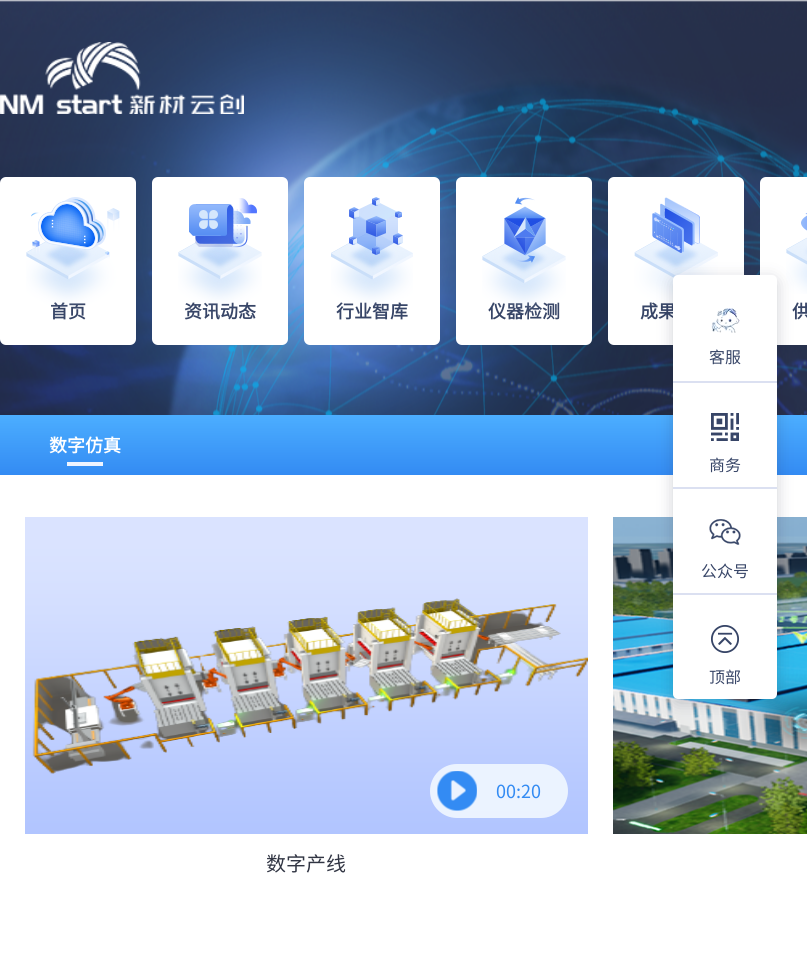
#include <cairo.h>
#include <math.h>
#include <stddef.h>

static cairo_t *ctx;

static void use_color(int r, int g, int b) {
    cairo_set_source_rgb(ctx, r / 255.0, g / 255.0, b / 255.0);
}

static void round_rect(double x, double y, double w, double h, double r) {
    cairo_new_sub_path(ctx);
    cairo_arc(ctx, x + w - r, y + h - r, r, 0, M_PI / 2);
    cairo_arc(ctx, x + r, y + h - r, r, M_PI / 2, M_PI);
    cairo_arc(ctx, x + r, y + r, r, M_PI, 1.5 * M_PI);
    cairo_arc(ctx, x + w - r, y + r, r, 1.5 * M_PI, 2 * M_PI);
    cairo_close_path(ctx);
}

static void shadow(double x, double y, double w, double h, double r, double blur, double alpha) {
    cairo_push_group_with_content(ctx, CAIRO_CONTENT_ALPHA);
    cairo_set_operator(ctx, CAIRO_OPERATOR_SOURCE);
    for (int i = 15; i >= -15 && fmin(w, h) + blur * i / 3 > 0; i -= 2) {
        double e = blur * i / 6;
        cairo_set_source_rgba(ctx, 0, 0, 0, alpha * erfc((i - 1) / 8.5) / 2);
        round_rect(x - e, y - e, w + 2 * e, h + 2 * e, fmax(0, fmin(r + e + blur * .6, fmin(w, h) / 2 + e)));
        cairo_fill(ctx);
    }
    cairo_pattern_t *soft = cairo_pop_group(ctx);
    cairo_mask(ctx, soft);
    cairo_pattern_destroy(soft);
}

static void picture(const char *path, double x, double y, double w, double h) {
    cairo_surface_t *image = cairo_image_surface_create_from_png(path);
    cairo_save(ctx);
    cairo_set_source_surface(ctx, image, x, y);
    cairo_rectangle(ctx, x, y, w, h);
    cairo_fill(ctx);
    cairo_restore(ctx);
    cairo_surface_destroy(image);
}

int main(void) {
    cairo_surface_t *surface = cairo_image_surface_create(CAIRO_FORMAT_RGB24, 807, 973);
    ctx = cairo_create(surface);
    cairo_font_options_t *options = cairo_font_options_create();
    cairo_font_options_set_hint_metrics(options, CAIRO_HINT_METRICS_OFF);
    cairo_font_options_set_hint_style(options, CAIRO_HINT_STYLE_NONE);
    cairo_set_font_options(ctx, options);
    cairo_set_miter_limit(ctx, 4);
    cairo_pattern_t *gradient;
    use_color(245, 245, 245);
    cairo_paint(ctx);
    picture("img1.png", 0, 0, 807, 415);
    picture("img2.png", 0, 42, 244, 72);
    use_color(255, 255, 255);
    round_rect(0, 177, 136, 168, 6);
    cairo_fill(ctx);
    cairo_select_font_face(ctx, "Noto Sans SC", CAIRO_FONT_SLANT_NORMAL, CAIRO_FONT_WEIGHT_BOLD);
    cairo_set_font_size(ctx, 18);
    use_color(55, 69, 103);
    cairo_move_to(ctx, 50, 318);
    cairo_show_text(ctx, "首页");
    picture("img3.png", 26, 197, 94, 110);
    use_color(255, 255, 255);
    round_rect(152, 177, 136, 168, 6);
    cairo_fill(ctx);
    use_color(55, 69, 103);
    cairo_move_to(ctx, 184, 318);
    cairo_show_text(ctx, "资讯动态");
    picture("img4.png", 178, 198, 84, 110);
    use_color(255, 255, 255);
    round_rect(304, 177, 136, 168, 6);
    cairo_fill(ctx);
    use_color(55, 69, 103);
    cairo_move_to(ctx, 336, 318);
    cairo_show_text(ctx, "行业智库");
    picture("img5.png", 331, 197, 82, 110);
    use_color(255, 255, 255);
    round_rect(456, 177, 136, 168, 6);
    cairo_fill(ctx);
    use_color(55, 69, 103);
    cairo_move_to(ctx, 488, 318);
    cairo_show_text(ctx, "仪器检测");
    picture("img6.png", 482, 197, 84, 115);
    use_color(255, 255, 255);
    round_rect(608, 177, 136, 168, 6);
    cairo_fill(ctx);
    use_color(55, 69, 103);
    cairo_move_to(ctx, 640, 318);
    cairo_show_text(ctx, "成果");
    picture("img7.png", 634, 197, 84, 108);
    use_color(255, 255, 255);
    round_rect(760, 177, 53, 168, 6);
    cairo_fill(ctx);
    picture("img8.png", 786, 213, 21, 81);
    use_color(55, 69, 103);
    cairo_move_to(ctx, 792, 318);
    cairo_show_text(ctx, "供");
    gradient = cairo_pattern_create_linear(600, 475, 600, 415);
    cairo_pattern_add_color_stop_rgba(gradient, 0, 0.2, 0.545, 0.953, 1);
    cairo_pattern_add_color_stop_rgba(gradient, 1, 0.298, 0.682, 1, 1);
    cairo_set_source(ctx, gradient);
    cairo_pattern_destroy(gradient);
    cairo_rectangle(ctx, 0, 415, 807, 60);
    cairo_fill(ctx);
    use_color(255, 255, 255);
    cairo_move_to(ctx, 49, 452);
    cairo_show_text(ctx, "数字仿真");
    use_color(238, 244, 255);
    cairo_rectangle(ctx, 67, 462, 36, 4);
    cairo_fill(ctx);
    use_color(255, 255, 255);
    cairo_rectangle(ctx, 0, 475, 807, 498);
    cairo_fill(ctx);
    picture("img15.png", 613, 517, 194, 317);
    use_color(34, 41, 64);
    shadow(673, 279, 104, 424, 5, 8, 0.22);
    use_color(255, 255, 255);
    round_rect(673, 275, 104, 424, 5);
    cairo_fill(ctx);
    picture("img9.png", 711, 308, 29, 25);
    cairo_select_font_face(ctx, "Noto Sans SC", CAIRO_FONT_SLANT_NORMAL, CAIRO_FONT_WEIGHT_NORMAL);
    cairo_set_font_size(ctx, 16);
    use_color(55, 69, 103);
    cairo_move_to(ctx, 709, 363);
    cairo_show_text(ctx, "客服");
    picture("img10.png", 711, 413, 28, 28);
    use_color(219, 224, 241);
    cairo_rectangle(ctx, 673, 381, 104, 2);
    cairo_fill(ctx);
    use_color(55, 69, 103);
    cairo_move_to(ctx, 709, 471);
    cairo_show_text(ctx, "商务");
    picture("img11.png", 709, 519, 32, 26);
    use_color(219, 224, 241);
    cairo_rectangle(ctx, 673, 487, 104, 2);
    cairo_fill(ctx);
    use_color(55, 69, 103);
    cairo_move_to(ctx, 701, 577);
    cairo_show_text(ctx, "公众号");
    picture("img12.png", 711, 625, 28, 28);
    use_color(219, 224, 241);
    cairo_rectangle(ctx, 673, 593, 104, 2);
    cairo_fill(ctx);
    use_color(55, 69, 103);
    cairo_move_to(ctx, 709, 683);
    cairo_show_text(ctx, "顶部");
    picture("img13.png", 25, 517, 563, 317);
    cairo_set_source_rgba(ctx, 0.945, 0.969, 1, 0.9);
    round_rect(430, 764, 138, 54, 27);
    cairo_fill(ctx);
    picture("img14.png", 437, 771, 40, 40);
    cairo_set_font_size(ctx, 18);
    use_color(51, 139, 243);
    cairo_move_to(ctx, 496, 798);
    cairo_show_text(ctx, "00:20");
    cairo_set_font_size(ctx, 20);
    use_color(49, 53, 67);
    cairo_move_to(ctx, 266, 871);
    cairo_show_text(ctx, "数字产线");
    cairo_surface_write_to_png(surface, "result.png");
    cairo_font_options_destroy(options);
    cairo_destroy(ctx);
    cairo_surface_destroy(surface);
    return 0;
}
